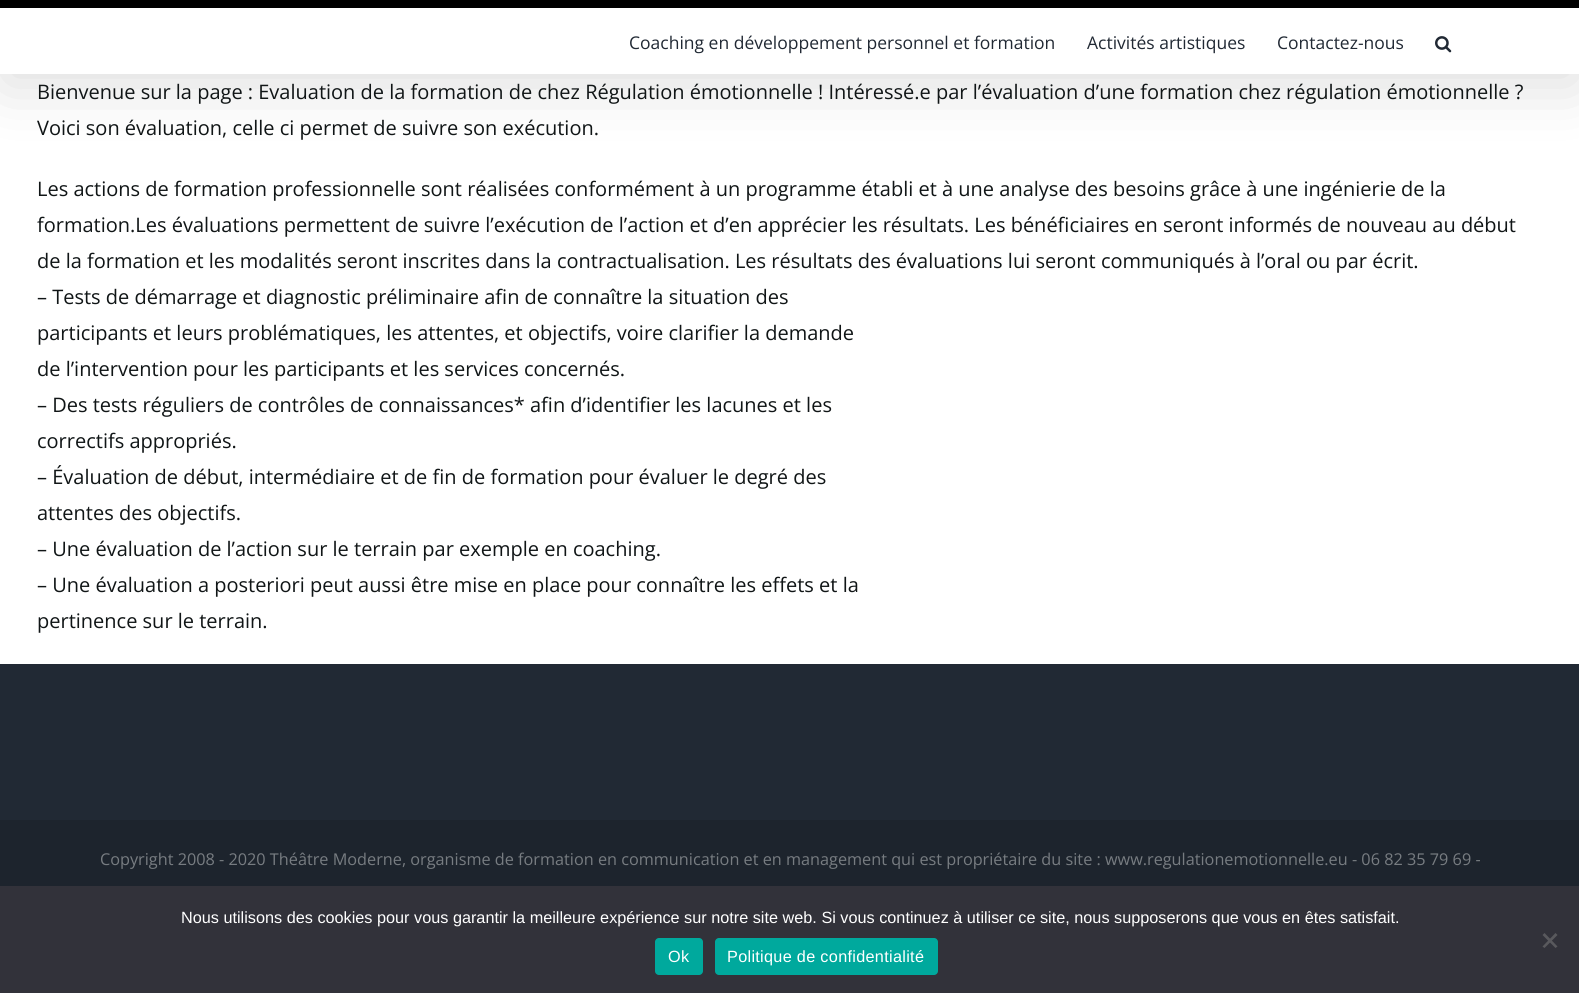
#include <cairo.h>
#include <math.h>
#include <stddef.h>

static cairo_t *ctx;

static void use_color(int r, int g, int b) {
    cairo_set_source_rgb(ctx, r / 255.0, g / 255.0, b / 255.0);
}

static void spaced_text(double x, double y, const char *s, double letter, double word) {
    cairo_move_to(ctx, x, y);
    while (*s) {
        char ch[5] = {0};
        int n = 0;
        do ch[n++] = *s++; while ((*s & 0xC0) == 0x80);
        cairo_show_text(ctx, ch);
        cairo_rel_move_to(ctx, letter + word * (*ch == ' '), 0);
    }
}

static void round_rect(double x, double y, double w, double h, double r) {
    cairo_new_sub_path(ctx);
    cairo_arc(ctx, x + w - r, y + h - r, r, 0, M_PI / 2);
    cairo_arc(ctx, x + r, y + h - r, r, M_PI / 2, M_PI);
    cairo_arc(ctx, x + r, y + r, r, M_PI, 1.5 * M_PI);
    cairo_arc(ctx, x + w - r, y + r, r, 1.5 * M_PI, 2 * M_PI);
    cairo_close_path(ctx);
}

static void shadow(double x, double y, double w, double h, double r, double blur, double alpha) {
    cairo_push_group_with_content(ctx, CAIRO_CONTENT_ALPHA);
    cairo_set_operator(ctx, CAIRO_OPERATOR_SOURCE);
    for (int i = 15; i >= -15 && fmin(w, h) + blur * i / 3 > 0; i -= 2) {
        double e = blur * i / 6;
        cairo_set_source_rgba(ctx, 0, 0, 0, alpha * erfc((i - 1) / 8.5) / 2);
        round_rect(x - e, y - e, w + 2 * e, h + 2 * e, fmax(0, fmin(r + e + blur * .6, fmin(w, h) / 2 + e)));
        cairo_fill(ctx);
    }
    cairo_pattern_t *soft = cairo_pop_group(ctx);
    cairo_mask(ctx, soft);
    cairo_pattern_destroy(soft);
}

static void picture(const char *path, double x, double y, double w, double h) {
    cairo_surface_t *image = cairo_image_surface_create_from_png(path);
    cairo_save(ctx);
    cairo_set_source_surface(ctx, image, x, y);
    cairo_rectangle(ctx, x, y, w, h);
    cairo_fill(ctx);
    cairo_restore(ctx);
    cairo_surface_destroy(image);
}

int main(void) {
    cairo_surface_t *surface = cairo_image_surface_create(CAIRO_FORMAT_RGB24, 1579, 993);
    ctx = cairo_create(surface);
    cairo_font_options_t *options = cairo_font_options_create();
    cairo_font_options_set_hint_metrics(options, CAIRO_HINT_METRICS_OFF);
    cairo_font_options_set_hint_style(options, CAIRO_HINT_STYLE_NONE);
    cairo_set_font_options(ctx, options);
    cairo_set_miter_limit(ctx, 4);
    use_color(255, 255, 255);
    cairo_paint(ctx);
    use_color(0, 0, 0);
    shadow(3, -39, 1575, 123, 0, 31, 0.14);
    use_color(0, 0, 0);
    cairo_rectangle(ctx, 0, 0, 1579, 8);
    cairo_fill(ctx);
    use_color(255, 255, 255);
    cairo_rectangle(ctx, 0, 8, 1579, 66);
    cairo_fill(ctx);
    cairo_select_font_face(ctx, "Open Sans", CAIRO_FONT_SLANT_NORMAL, CAIRO_FONT_WEIGHT_NORMAL);
    cairo_set_font_size(ctx, 17.5);
    use_color(33, 41, 52);
    cairo_move_to(ctx, 629, 49);
    cairo_show_text(ctx, "Coaching en développement personnel et formation");
    cairo_move_to(ctx, 1087, 49);
    cairo_show_text(ctx, "Activités artistiques");
    cairo_move_to(ctx, 1277, 49);
    cairo_show_text(ctx, "Contactez-nous");
    picture("img1.png", 1435, 36, 17, 17);
    cairo_set_font_size(ctx, 20);
    use_color(16, 21, 22);
    cairo_move_to(ctx, 37, 99);
    cairo_show_text(ctx, "Bienvenue sur la page : Evaluation de la formation de chez Régulation émotionnelle ! Intéressé.e par l’évaluation d’une formation chez régulation émotionnelle ?");
    cairo_move_to(ctx, 37, 135);
    cairo_show_text(ctx, "Voici son évaluation, celle ci permet de suivre son exécution.");
    cairo_move_to(ctx, 37, 196);
    cairo_show_text(ctx, "Les actions de formation professionnelle sont réalisées conformément à un programme établi et à une analyse des besoins grâce à une ingénierie de la");
    cairo_move_to(ctx, 37, 232);
    cairo_show_text(ctx, "formation.Les évaluations permettent de suivre l’exécution de l’action et d’en apprécier les résultats. Les bénéficiaires en seront informés de nouveau au début");
    cairo_move_to(ctx, 37, 268);
    cairo_show_text(ctx, "de la formation et les modalités seront inscrites dans la contractualisation. Les résultats des évaluations lui seront communiqués à l’oral ou par écrit.");
    cairo_move_to(ctx, 37, 304);
    cairo_show_text(ctx, "– Tests de démarrage et diagnostic préliminaire afin de connaître la situation des");
    cairo_move_to(ctx, 37, 340);
    cairo_show_text(ctx, "participants et leurs problématiques, les attentes, et objectifs, voire clarifier la demande");
    cairo_move_to(ctx, 37, 376);
    cairo_show_text(ctx, "de l’intervention pour les participants et les services concernés.");
    cairo_move_to(ctx, 37, 412);
    cairo_show_text(ctx, "– Des tests réguliers de contrôles de connaissances* afin d’identifier les lacunes et les");
    cairo_move_to(ctx, 37, 448);
    cairo_show_text(ctx, "correctifs appropriés.");
    cairo_move_to(ctx, 37, 484);
    cairo_show_text(ctx, "– Évaluation de début, intermédiaire et de fin de formation pour évaluer le degré des");
    cairo_move_to(ctx, 37, 520);
    cairo_show_text(ctx, "attentes des objectifs.");
    cairo_move_to(ctx, 37, 556);
    cairo_show_text(ctx, "– Une évaluation de l’action sur le terrain par exemple en coaching.");
    cairo_move_to(ctx, 37, 592);
    cairo_show_text(ctx, "– Une évaluation a posteriori peut aussi être mise en place pour connaître les effets et la");
    cairo_move_to(ctx, 37, 628);
    cairo_show_text(ctx, "pertinence sur le terrain.");
    use_color(33, 41, 52);
    cairo_rectangle(ctx, 0, 664, 1579, 156);
    cairo_fill(ctx);
    use_color(29, 36, 45);
    cairo_rectangle(ctx, 0, 820, 1579, 66);
    cairo_fill(ctx);
    cairo_set_font_size(ctx, 16.25);
    use_color(119, 124, 129);
    cairo_move_to(ctx, 100, 865);
    cairo_show_text(ctx, "Copyright 2008 - 2020 Théâtre Moderne, organisme de formation en communication et en management qui est propriétaire du site : www.regulationemotionnelle.eu - 06 82 35 79 69 -");
    use_color(50, 50, 58);
    cairo_rectangle(ctx, 0, 886, 1579, 107);
    cairo_fill(ctx);
    cairo_select_font_face(ctx, "Liberation Sans", CAIRO_FONT_SLANT_NORMAL, CAIRO_FONT_WEIGHT_NORMAL);
    use_color(255, 255, 255);
    cairo_move_to(ctx, 181, 923);
    cairo_show_text(ctx, "Nous utilisons des cookies pour vous garantir la meilleure expérience sur notre site web. Si vous continuez à utiliser ce site, nous supposerons que vous en êtes satisfait.");
    use_color(89, 89, 93);
    cairo_new_path(ctx);
    cairo_move_to(ctx, 1555.5, 933);
    cairo_line_to(ctx, 1557.5, 935);
    cairo_line_to(ctx, 1544.5, 948);
    cairo_line_to(ctx, 1542.5, 946.5);
    cairo_close_path(ctx);
    cairo_fill(ctx);
    cairo_new_path(ctx);
    cairo_move_to(ctx, 1542.5, 935);
    cairo_line_to(ctx, 1544.5, 933);
    cairo_line_to(ctx, 1557.5, 946.5);
    cairo_line_to(ctx, 1555.5, 948);
    cairo_close_path(ctx);
    cairo_fill(ctx);
    use_color(0, 169, 157);
    round_rect(655, 938, 48, 37, 4);
    cairo_fill(ctx);
    use_color(255, 255, 255);
    spaced_text(668, 962, "Ok", 0.3, 0);
    use_color(0, 169, 157);
    round_rect(715, 938, 223, 37, 4);
    cairo_fill(ctx);
    use_color(255, 255, 255);
    spaced_text(727, 962, "Politique de confidentialité", 0.3, 0);
    cairo_surface_write_to_png(surface, "result.png");
    cairo_font_options_destroy(options);
    cairo_destroy(ctx);
    cairo_surface_destroy(surface);
    return 0;
}
